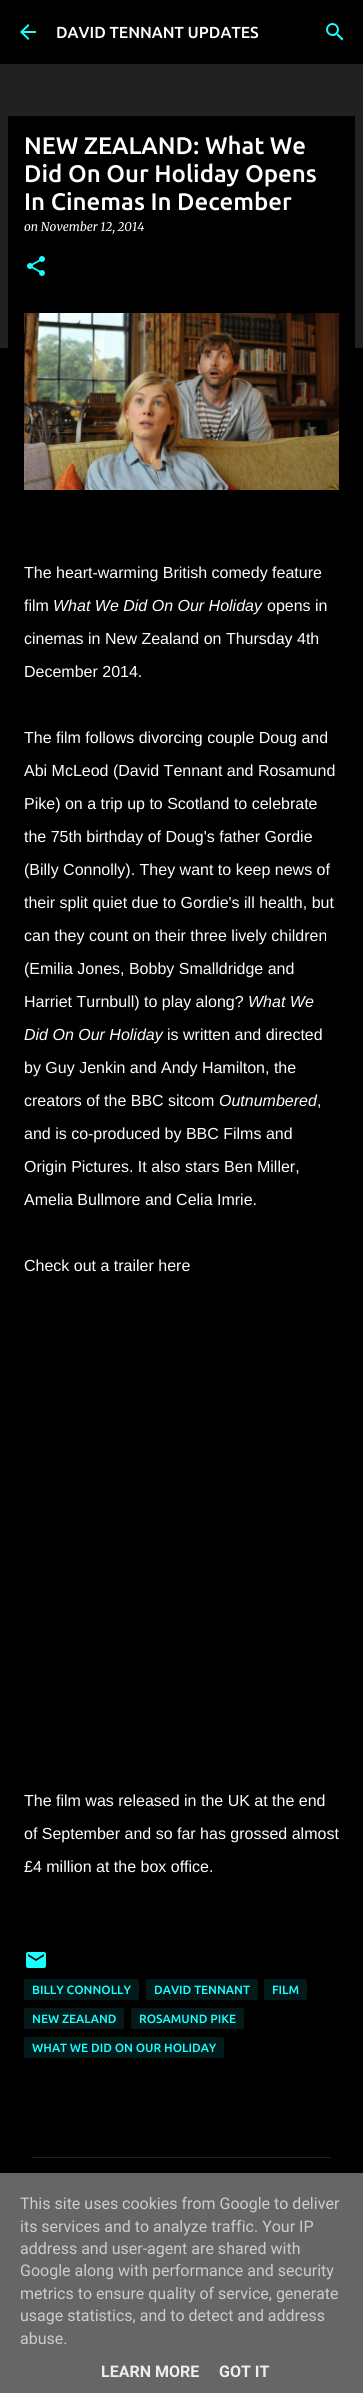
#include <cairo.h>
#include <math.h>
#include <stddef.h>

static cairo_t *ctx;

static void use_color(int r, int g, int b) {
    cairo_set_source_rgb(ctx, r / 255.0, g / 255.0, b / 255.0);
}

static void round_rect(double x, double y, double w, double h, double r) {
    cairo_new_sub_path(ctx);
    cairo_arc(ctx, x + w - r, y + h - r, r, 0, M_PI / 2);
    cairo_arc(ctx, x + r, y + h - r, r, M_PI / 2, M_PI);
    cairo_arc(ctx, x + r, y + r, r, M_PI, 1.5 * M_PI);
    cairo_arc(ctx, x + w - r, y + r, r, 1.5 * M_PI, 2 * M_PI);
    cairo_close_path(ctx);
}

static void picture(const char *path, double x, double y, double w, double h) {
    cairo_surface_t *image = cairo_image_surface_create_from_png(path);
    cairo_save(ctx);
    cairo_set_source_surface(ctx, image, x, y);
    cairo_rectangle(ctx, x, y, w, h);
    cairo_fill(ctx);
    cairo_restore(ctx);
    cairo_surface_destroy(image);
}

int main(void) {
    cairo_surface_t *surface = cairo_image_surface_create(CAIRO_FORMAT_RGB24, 363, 2393);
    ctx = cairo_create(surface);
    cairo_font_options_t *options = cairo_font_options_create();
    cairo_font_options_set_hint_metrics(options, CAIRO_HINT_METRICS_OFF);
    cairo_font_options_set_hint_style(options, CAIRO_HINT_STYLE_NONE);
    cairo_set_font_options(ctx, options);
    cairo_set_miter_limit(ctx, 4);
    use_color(33, 33, 33);
    cairo_paint(ctx);
    use_color(0, 0, 0);
    cairo_rectangle(ctx, 0, 0, 363, 64);
    cairo_fill(ctx);
    picture("img1.png", 20, 24, 16, 16);
    cairo_select_font_face(ctx, "Ubuntu Medium", CAIRO_FONT_SLANT_NORMAL, CAIRO_FONT_WEIGHT_NORMAL);
    cairo_set_font_size(ctx, 16);
    use_color(255, 255, 255);
    cairo_move_to(ctx, 56, 38);
    cairo_show_text(ctx, "DAVID TENNANT UPDATES");
    picture("img2.png", 326, 23, 18, 18);
    use_color(0, 0, 0);
    cairo_rectangle(ctx, 0, 348, 363, 1825);
    cairo_fill(ctx);
    cairo_rectangle(ctx, 8, 116, 347, 232);
    cairo_fill(ctx);
    cairo_set_font_size(ctx, 24);
    use_color(255, 255, 255);
    cairo_move_to(ctx, 24, 154);
    cairo_show_text(ctx, "NEW ZEALAND: What We");
    cairo_move_to(ctx, 24, 182);
    cairo_show_text(ctx, "Did On Our Holiday Opens");
    cairo_move_to(ctx, 24, 210);
    cairo_show_text(ctx, "In Cinemas In December");
    cairo_select_font_face(ctx, "Merriweather", CAIRO_FONT_SLANT_ITALIC, CAIRO_FONT_WEIGHT_NORMAL);
    cairo_set_font_size(ctx, 12);
    cairo_move_to(ctx, 24, 231);
    cairo_show_text(ctx, "on November 12, 2014");
    picture("img3.png", 27, 256, 18, 20);
    picture("img4.png", 24, 313, 315, 177);
    cairo_select_font_face(ctx, "Liberation Sans", CAIRO_FONT_SLANT_NORMAL, CAIRO_FONT_WEIGHT_NORMAL);
    cairo_set_font_size(ctx, 16);
    cairo_move_to(ctx, 24, 578);
    cairo_show_text(ctx, "The heart-warming British comedy feature");
    cairo_move_to(ctx, 24, 611);
    cairo_show_text(ctx, "film");
    cairo_select_font_face(ctx, "Liberation Sans", CAIRO_FONT_SLANT_ITALIC, CAIRO_FONT_WEIGHT_NORMAL);
    cairo_move_to(ctx, 53, 611);
    cairo_show_text(ctx, "What We Did On Our Holiday");
    cairo_select_font_face(ctx, "Liberation Sans", CAIRO_FONT_SLANT_NORMAL, CAIRO_FONT_WEIGHT_NORMAL);
    cairo_move_to(ctx, 267, 611);
    cairo_show_text(ctx, "opens in");
    cairo_move_to(ctx, 24, 644);
    cairo_show_text(ctx, "cinemas in New Zealand on Thursday 4th");
    cairo_move_to(ctx, 24, 677);
    cairo_show_text(ctx, "December 2014.");
    cairo_move_to(ctx, 24, 743);
    cairo_show_text(ctx, "The film follows divorcing couple Doug and");
    cairo_move_to(ctx, 24, 776);
    cairo_show_text(ctx, "Abi McLeod (David Tennant and Rosamund");
    cairo_move_to(ctx, 24, 809);
    cairo_show_text(ctx, "Pike) on a trip up to Scotland to celebrate");
    cairo_move_to(ctx, 24, 842);
    cairo_show_text(ctx, "the 75th birthday of Doug's father Gordie");
    cairo_move_to(ctx, 24, 875);
    cairo_show_text(ctx, "(Billy Connolly). They want to keep news of");
    cairo_move_to(ctx, 24, 908);
    cairo_show_text(ctx, "their split quiet due to Gordie's ill health, but");
    cairo_move_to(ctx, 24, 941);
    cairo_show_text(ctx, "can they count on their three lively children");
    cairo_move_to(ctx, 24, 974);
    cairo_show_text(ctx, "(Emilia Jones, Bobby Smalldridge and");
    cairo_move_to(ctx, 24, 1007);
    cairo_show_text(ctx, "Harriet Turnbull) to play along?");
    cairo_select_font_face(ctx, "Liberation Sans", CAIRO_FONT_SLANT_ITALIC, CAIRO_FONT_WEIGHT_NORMAL);
    cairo_move_to(ctx, 248, 1007);
    cairo_show_text(ctx, "What We");
    cairo_move_to(ctx, 24, 1040);
    cairo_show_text(ctx, "Did On Our Holiday");
    cairo_select_font_face(ctx, "Liberation Sans", CAIRO_FONT_SLANT_NORMAL, CAIRO_FONT_WEIGHT_NORMAL);
    cairo_move_to(ctx, 167, 1040);
    cairo_show_text(ctx, "is written and directed");
    cairo_move_to(ctx, 24, 1073);
    cairo_show_text(ctx, "by Guy Jenkin and Andy Hamilton, the");
    cairo_move_to(ctx, 24, 1106);
    cairo_show_text(ctx, "creators of the BBC sitcom");
    cairo_select_font_face(ctx, "Liberation Sans", CAIRO_FONT_SLANT_ITALIC, CAIRO_FONT_WEIGHT_NORMAL);
    cairo_move_to(ctx, 219, 1106);
    cairo_show_text(ctx, "Outnumbered");
    cairo_select_font_face(ctx, "Liberation Sans", CAIRO_FONT_SLANT_NORMAL, CAIRO_FONT_WEIGHT_NORMAL);
    cairo_move_to(ctx, 317, 1106);
    cairo_show_text(ctx, ",");
    cairo_move_to(ctx, 24, 1139);
    cairo_show_text(ctx, "and is co-produced by BBC Films and");
    cairo_move_to(ctx, 24, 1172);
    cairo_show_text(ctx, "Origin Pictures. It also stars Ben Miller,");
    cairo_move_to(ctx, 24, 1205);
    cairo_show_text(ctx, "Amelia Bullmore and Celia Imrie.");
    cairo_move_to(ctx, 24, 1271);
    cairo_show_text(ctx, "Check out a trailer here");
    cairo_move_to(ctx, 24, 1806);
    cairo_show_text(ctx, "The film was released in the UK at the end");
    cairo_move_to(ctx, 24, 1839);
    cairo_show_text(ctx, "of September and so far has grossed almost");
    cairo_move_to(ctx, 24, 1872);
    cairo_show_text(ctx, "£4 million at the box office.");
    picture("img5.png", 26, 1952, 20, 16);
    use_color(2, 26, 26);
    round_rect(24, 1979, 115, 21, 2);
    cairo_fill(ctx);
    cairo_select_font_face(ctx, "Ubuntu Medium", CAIRO_FONT_SLANT_NORMAL, CAIRO_FONT_WEIGHT_NORMAL);
    cairo_set_font_size(ctx, 12);
    use_color(24, 255, 255);
    cairo_move_to(ctx, 32, 1994);
    cairo_show_text(ctx, "BILLY CONNOLLY");
    use_color(2, 26, 26);
    round_rect(146, 1979, 112, 21, 2);
    cairo_fill(ctx);
    use_color(24, 255, 255);
    cairo_move_to(ctx, 154, 1994);
    cairo_show_text(ctx, "DAVID TENNANT");
    use_color(2, 26, 26);
    round_rect(264, 1979, 43, 21, 2);
    cairo_fill(ctx);
    use_color(24, 255, 255);
    cairo_move_to(ctx, 272, 1994);
    cairo_show_text(ctx, "FILM");
    use_color(2, 26, 26);
    round_rect(24, 2008, 100, 21, 2);
    cairo_fill(ctx);
    use_color(24, 255, 255);
    cairo_move_to(ctx, 32, 2023);
    cairo_show_text(ctx, "NEW ZEALAND");
    use_color(2, 26, 26);
    round_rect(131, 2008, 113, 21, 2);
    cairo_fill(ctx);
    use_color(24, 255, 255);
    cairo_move_to(ctx, 139, 2023);
    cairo_show_text(ctx, "ROSAMUND PIKE");
    use_color(2, 26, 26);
    round_rect(24, 2037, 200, 21, 2);
    cairo_fill(ctx);
    use_color(24, 255, 255);
    cairo_move_to(ctx, 32, 2052);
    cairo_show_text(ctx, "WHAT WE DID ON OUR HOLIDAY");
    use_color(31, 31, 31);
    cairo_rectangle(ctx, 32, 2157, 299, 1);
    cairo_fill(ctx);
    use_color(102, 102, 102);
    cairo_rectangle(ctx, 0, 2173, 363, 220);
    cairo_fill(ctx);
    cairo_select_font_face(ctx, "Roboto", CAIRO_FONT_SLANT_NORMAL, CAIRO_FONT_WEIGHT_NORMAL);
    cairo_set_font_size(ctx, 16);
    use_color(204, 204, 204);
    cairo_move_to(ctx, 20, 2209);
    cairo_show_text(ctx, "This site uses cookies from Google to deliver");
    cairo_move_to(ctx, 20, 2232);
    cairo_show_text(ctx, "its services and to analyze traffic. Your IP");
    cairo_move_to(ctx, 20, 2254);
    cairo_show_text(ctx, "address and user-agent are shared with");
    cairo_move_to(ctx, 20, 2276);
    cairo_show_text(ctx, "Google along with performance and security");
    cairo_move_to(ctx, 20, 2299);
    cairo_show_text(ctx, "metrics to ensure quality of service, generate");
    cairo_move_to(ctx, 20, 2321);
    cairo_show_text(ctx, "usage statistics, and to detect and address");
    cairo_move_to(ctx, 20, 2344);
    cairo_show_text(ctx, "abuse.");
    cairo_select_font_face(ctx, "Roboto", CAIRO_FONT_SLANT_NORMAL, CAIRO_FONT_WEIGHT_BOLD);
    use_color(238, 238, 238);
    cairo_move_to(ctx, 101, 2377);
    cairo_show_text(ctx, "LEARN MORE");
    cairo_move_to(ctx, 219, 2377);
    cairo_show_text(ctx, "GOT IT");
    cairo_surface_write_to_png(surface, "result.png");
    cairo_font_options_destroy(options);
    cairo_destroy(ctx);
    cairo_surface_destroy(surface);
    return 0;
}
